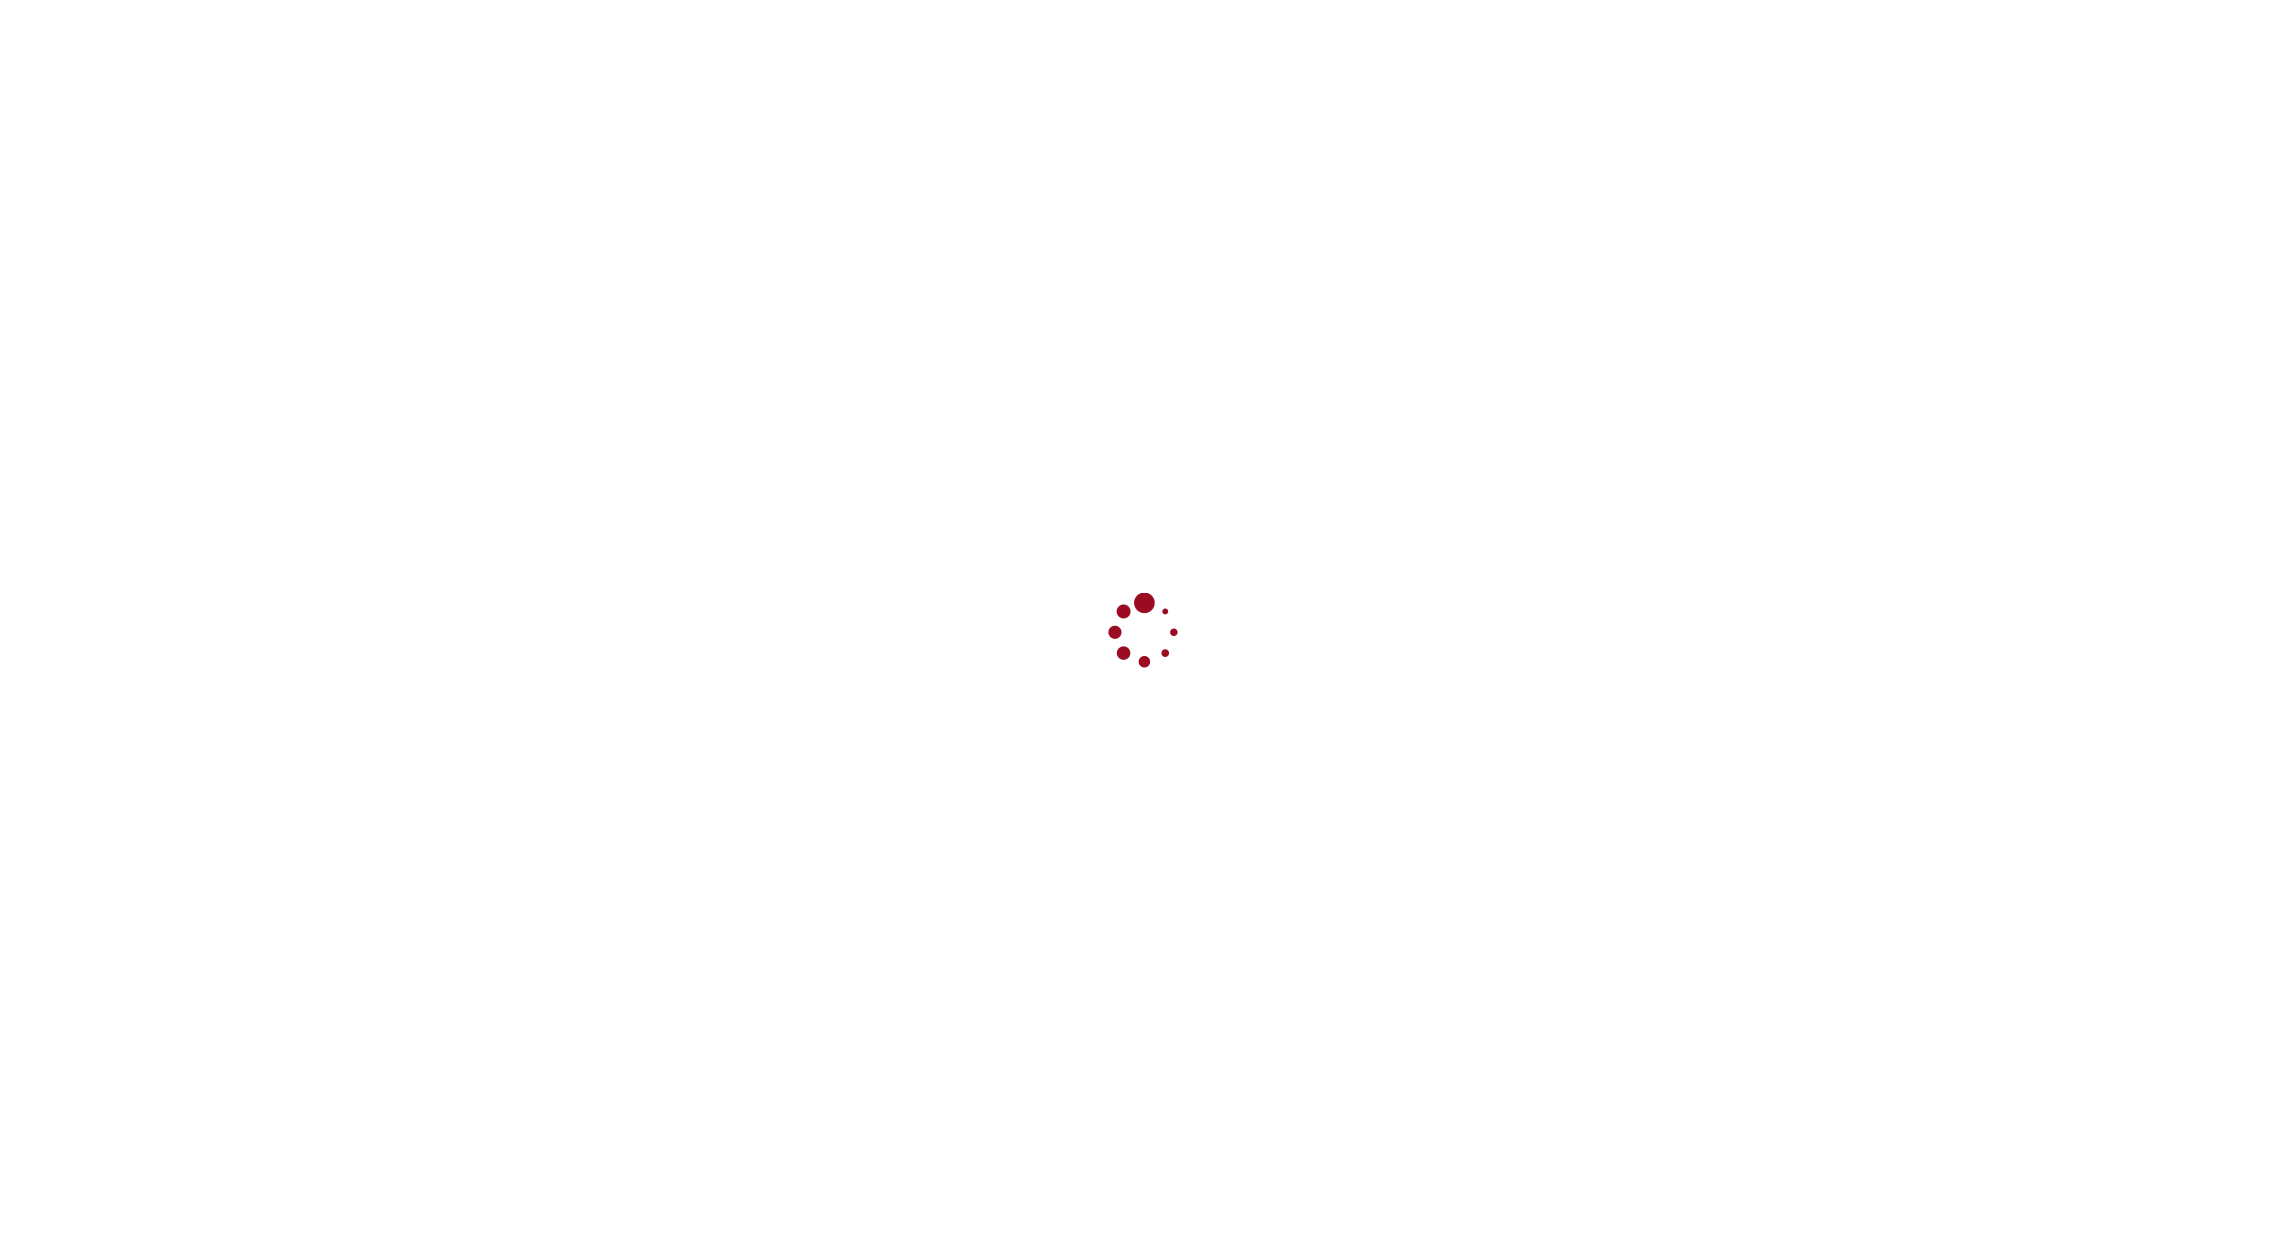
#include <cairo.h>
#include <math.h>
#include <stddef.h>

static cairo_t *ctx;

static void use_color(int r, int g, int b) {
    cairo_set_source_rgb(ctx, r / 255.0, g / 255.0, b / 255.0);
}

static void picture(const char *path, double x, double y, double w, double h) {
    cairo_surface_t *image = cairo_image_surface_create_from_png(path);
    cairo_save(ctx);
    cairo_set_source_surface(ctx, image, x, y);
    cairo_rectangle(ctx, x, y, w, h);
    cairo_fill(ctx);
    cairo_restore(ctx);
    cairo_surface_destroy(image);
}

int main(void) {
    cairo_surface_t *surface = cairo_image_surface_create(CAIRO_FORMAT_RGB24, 2284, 1258);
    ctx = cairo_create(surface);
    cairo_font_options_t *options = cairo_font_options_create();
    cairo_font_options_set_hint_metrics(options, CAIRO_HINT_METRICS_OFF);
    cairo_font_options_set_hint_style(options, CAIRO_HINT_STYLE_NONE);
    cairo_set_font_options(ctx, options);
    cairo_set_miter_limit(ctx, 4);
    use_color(255, 255, 255);
    cairo_paint(ctx);
    picture("img1.png", 1108, 593, 70, 75);
    cairo_surface_write_to_png(surface, "result.png");
    cairo_font_options_destroy(options);
    cairo_destroy(ctx);
    cairo_surface_destroy(surface);
    return 0;
}
